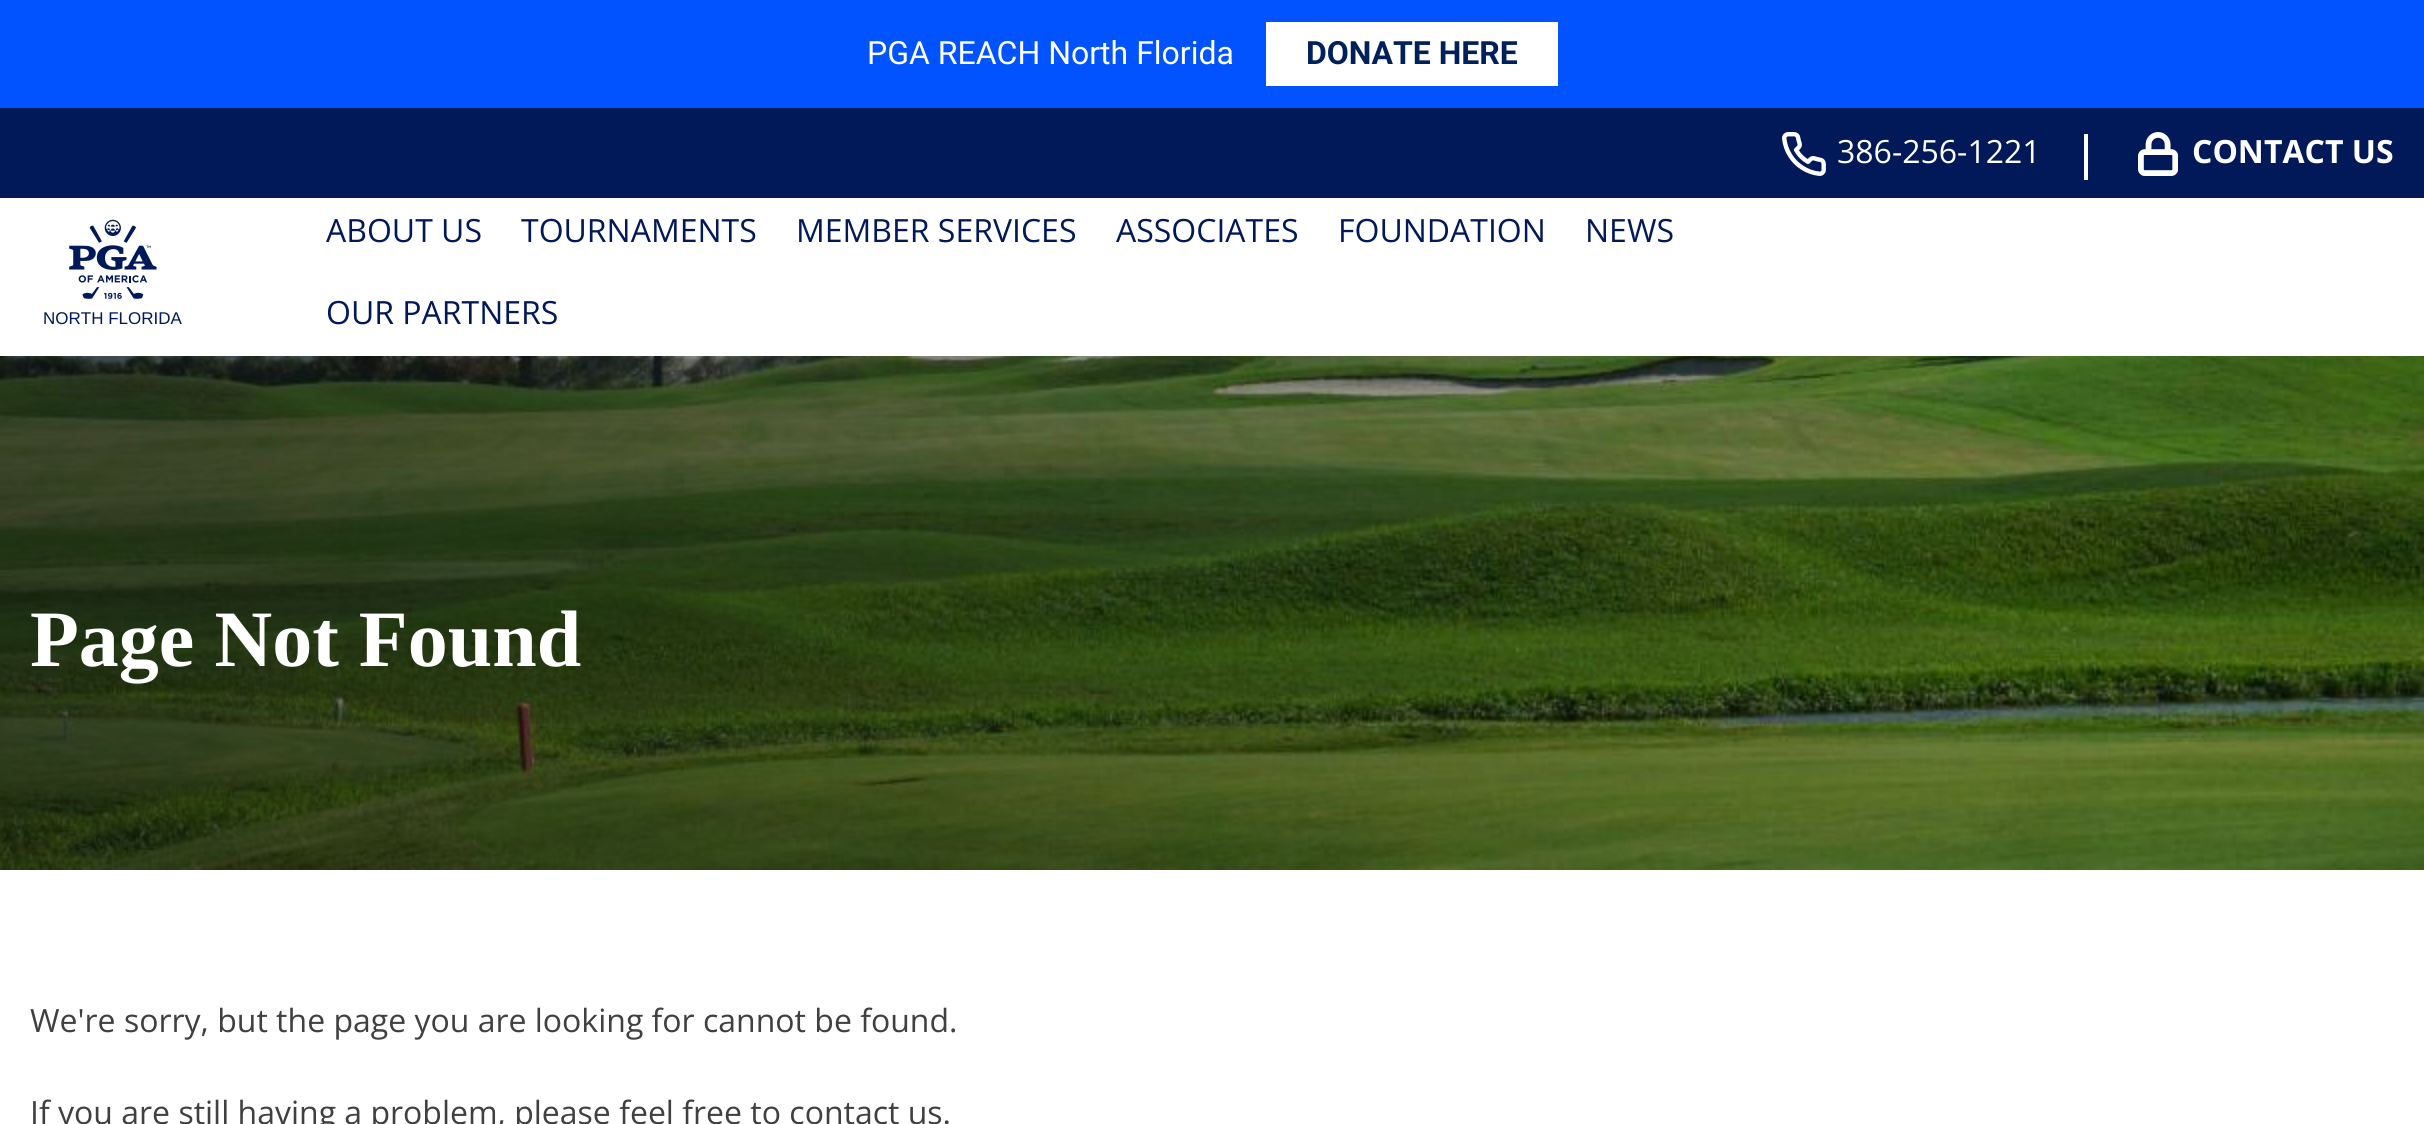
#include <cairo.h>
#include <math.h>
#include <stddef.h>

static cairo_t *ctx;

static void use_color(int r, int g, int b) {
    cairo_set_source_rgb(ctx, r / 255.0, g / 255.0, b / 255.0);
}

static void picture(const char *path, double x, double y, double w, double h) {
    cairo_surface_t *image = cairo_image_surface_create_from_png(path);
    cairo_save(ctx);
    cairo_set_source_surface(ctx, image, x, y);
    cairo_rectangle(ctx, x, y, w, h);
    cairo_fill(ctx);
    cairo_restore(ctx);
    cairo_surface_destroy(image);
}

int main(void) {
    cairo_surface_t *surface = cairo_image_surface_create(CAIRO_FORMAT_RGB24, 2424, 1124);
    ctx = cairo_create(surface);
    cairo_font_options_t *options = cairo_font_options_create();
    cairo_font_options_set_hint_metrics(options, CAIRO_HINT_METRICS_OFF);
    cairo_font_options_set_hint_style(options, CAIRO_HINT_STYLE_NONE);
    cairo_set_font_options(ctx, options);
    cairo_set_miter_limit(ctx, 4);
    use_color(255, 255, 255);
    cairo_paint(ctx);
    use_color(0, 83, 255);
    cairo_rectangle(ctx, 0, 0, 2424, 108);
    cairo_fill(ctx);
    cairo_select_font_face(ctx, "Roboto", CAIRO_FONT_SLANT_NORMAL, CAIRO_FONT_WEIGHT_NORMAL);
    cairo_set_font_size(ctx, 32);
    use_color(255, 255, 255);
    cairo_move_to(ctx, 867, 64);
    cairo_show_text(ctx, "PGA REACH North Florida");
    cairo_rectangle(ctx, 1266, 22, 292, 64);
    cairo_fill(ctx);
    cairo_select_font_face(ctx, "Roboto", CAIRO_FONT_SLANT_NORMAL, CAIRO_FONT_WEIGHT_BOLD);
    use_color(0, 32, 91);
    cairo_move_to(ctx, 1306, 64);
    cairo_show_text(ctx, "DONATE HERE");
    use_color(1, 25, 89);
    cairo_rectangle(ctx, 0, 108, 2424, 90);
    cairo_fill(ctx);
    picture("img1.png", 1782, 132, 44, 44);
    cairo_select_font_face(ctx, "Open Sans", CAIRO_FONT_SLANT_NORMAL, CAIRO_FONT_WEIGHT_NORMAL);
    use_color(255, 255, 255);
    cairo_move_to(ctx, 1837, 163);
    cairo_show_text(ctx, "386-256-1221");
    cairo_rectangle(ctx, 2084, 134, 4, 46);
    cairo_fill(ctx);
    picture("img2.png", 2138, 132, 40, 44);
    cairo_select_font_face(ctx, "Open Sans", CAIRO_FONT_SLANT_NORMAL, CAIRO_FONT_WEIGHT_BOLD);
    cairo_move_to(ctx, 2192, 163);
    cairo_show_text(ctx, "CONTACT US");
    picture("img3.png", 69, 219, 88, 80);
    cairo_select_font_face(ctx, "Liberation Sans", CAIRO_FONT_SLANT_NORMAL, CAIRO_FONT_WEIGHT_NORMAL);
    cairo_set_font_size(ctx, 17);
    use_color(1, 25, 89);
    cairo_move_to(ctx, 43, 324);
    cairo_show_text(ctx, "NORTH FLORIDA");
    cairo_select_font_face(ctx, "Open Sans", CAIRO_FONT_SLANT_NORMAL, CAIRO_FONT_WEIGHT_NORMAL);
    cairo_set_font_size(ctx, 32);
    cairo_move_to(ctx, 326, 242);
    cairo_show_text(ctx, "ABOUT US");
    cairo_move_to(ctx, 521, 242);
    cairo_show_text(ctx, "TOURNAMENTS");
    cairo_move_to(ctx, 796, 242);
    cairo_show_text(ctx, "MEMBER SERVICES");
    cairo_move_to(ctx, 1116, 242);
    cairo_show_text(ctx, "ASSOCIATES");
    cairo_move_to(ctx, 1338, 242);
    cairo_show_text(ctx, "FOUNDATION");
    cairo_move_to(ctx, 1585, 242);
    cairo_show_text(ctx, "NEWS");
    cairo_move_to(ctx, 326, 324);
    cairo_show_text(ctx, "OUR PARTNERS");
    picture("img4.png", 0, 356, 2424, 514);
    cairo_select_font_face(ctx, "Liberation Serif", CAIRO_FONT_SLANT_NORMAL, CAIRO_FONT_WEIGHT_BOLD);
    cairo_set_font_size(ctx, 80);
    use_color(255, 255, 255);
    cairo_move_to(ctx, 30, 666);
    cairo_show_text(ctx, "Page Not Found");
    cairo_select_font_face(ctx, "Open Sans", CAIRO_FONT_SLANT_NORMAL, CAIRO_FONT_WEIGHT_NORMAL);
    cairo_set_font_size(ctx, 32);
    use_color(64, 64, 64);
    cairo_move_to(ctx, 30, 1032);
    cairo_show_text(ctx, "We're sorry, but the page you are looking for cannot be found.");
    cairo_move_to(ctx, 30, 1124);
    cairo_show_text(ctx, "If you are still having a problem, please feel free to contact us.");
    cairo_surface_write_to_png(surface, "result.png");
    cairo_font_options_destroy(options);
    cairo_destroy(ctx);
    cairo_surface_destroy(surface);
    return 0;
}
